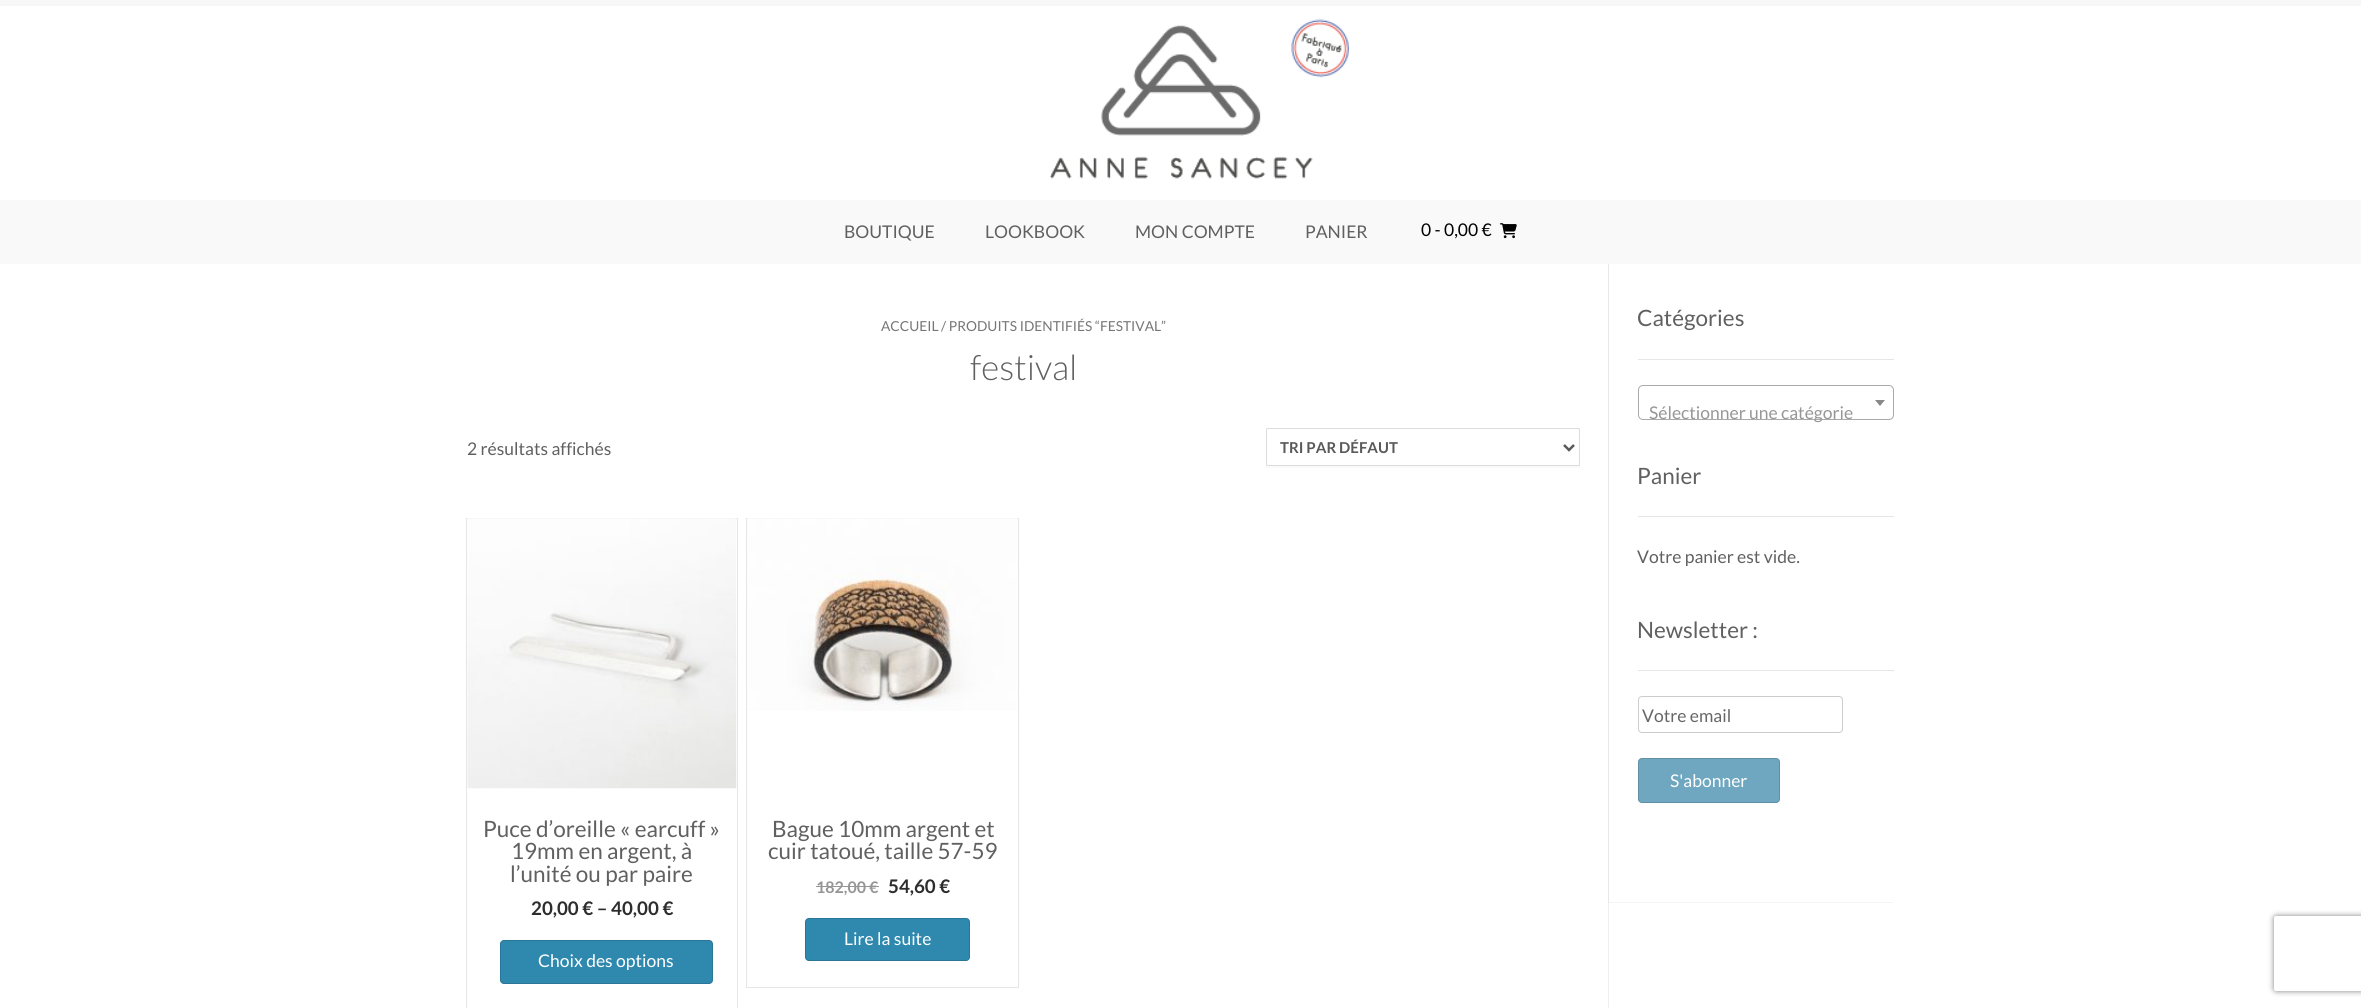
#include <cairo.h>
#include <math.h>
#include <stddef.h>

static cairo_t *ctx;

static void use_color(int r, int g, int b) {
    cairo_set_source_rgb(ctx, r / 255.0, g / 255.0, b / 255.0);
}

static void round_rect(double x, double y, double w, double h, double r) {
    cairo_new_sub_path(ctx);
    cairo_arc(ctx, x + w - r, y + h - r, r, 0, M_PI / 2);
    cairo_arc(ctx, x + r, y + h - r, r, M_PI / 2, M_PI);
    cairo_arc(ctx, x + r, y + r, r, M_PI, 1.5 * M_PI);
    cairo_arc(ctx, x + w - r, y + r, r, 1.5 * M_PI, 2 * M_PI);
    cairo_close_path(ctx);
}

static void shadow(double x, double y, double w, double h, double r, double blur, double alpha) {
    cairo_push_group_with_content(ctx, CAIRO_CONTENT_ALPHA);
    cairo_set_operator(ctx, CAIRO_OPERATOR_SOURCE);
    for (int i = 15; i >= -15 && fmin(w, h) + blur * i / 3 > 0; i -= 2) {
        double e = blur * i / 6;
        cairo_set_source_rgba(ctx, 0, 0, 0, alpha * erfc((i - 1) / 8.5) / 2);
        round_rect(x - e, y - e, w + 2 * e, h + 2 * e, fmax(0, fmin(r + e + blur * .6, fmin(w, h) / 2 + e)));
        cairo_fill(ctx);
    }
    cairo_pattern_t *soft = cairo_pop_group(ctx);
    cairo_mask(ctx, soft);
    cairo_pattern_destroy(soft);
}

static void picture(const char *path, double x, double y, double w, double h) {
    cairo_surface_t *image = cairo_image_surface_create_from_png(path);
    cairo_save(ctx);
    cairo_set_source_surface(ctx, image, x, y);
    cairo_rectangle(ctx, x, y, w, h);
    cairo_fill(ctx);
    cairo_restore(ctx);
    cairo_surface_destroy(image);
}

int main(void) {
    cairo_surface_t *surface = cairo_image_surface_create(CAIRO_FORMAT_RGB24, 2361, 1008);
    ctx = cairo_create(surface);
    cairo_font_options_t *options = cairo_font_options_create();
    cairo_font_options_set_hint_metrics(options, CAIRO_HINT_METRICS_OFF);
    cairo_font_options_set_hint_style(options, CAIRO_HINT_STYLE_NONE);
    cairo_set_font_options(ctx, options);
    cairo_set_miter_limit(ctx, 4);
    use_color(255, 255, 255);
    cairo_paint(ctx);
    use_color(247, 247, 247);
    cairo_rectangle(ctx, 0, 0, 2361, 6);
    cairo_fill(ctx);
    picture("img1.png", 1049, 19, 300, 160);
    use_color(249, 249, 249);
    cairo_rectangle(ctx, 0, 200, 2361, 64);
    cairo_fill(ctx);
    cairo_select_font_face(ctx, "Lato", CAIRO_FONT_SLANT_NORMAL, CAIRO_FONT_WEIGHT_NORMAL);
    cairo_set_font_size(ctx, 17.5);
    use_color(96, 96, 96);
    cairo_move_to(ctx, 844, 238);
    cairo_show_text(ctx, "BOUTIQUE");
    cairo_move_to(ctx, 985, 238);
    cairo_show_text(ctx, "LOOKBOOK");
    cairo_move_to(ctx, 1135, 238);
    cairo_show_text(ctx, "MON COMPTE");
    cairo_move_to(ctx, 1305, 238);
    cairo_show_text(ctx, "PANIER");
    use_color(0, 0, 0);
    cairo_move_to(ctx, 1421, 236);
    cairo_show_text(ctx, "0 - 0,00 €");
    picture("img2.png", 1500, 223, 17, 16);
    use_color(245, 245, 245);
    cairo_new_path(ctx);
    cairo_move_to(ctx, 1608, 264);
    cairo_line_to(ctx, 1608, 903);
    cairo_line_to(ctx, 1893, 903);
    cairo_line_to(ctx, 1893, 902);
    cairo_line_to(ctx, 1609, 902);
    cairo_line_to(ctx, 1609, 264);
    cairo_close_path(ctx);
    cairo_fill(ctx);
    cairo_set_source_rgba(ctx, 0, 0, 0, 0.06);
    cairo_rectangle(ctx, 1608, 264, 1, 744);
    cairo_fill(ctx);
    cairo_set_font_size(ctx, 13.75);
    use_color(118, 118, 118);
    cairo_move_to(ctx, 881, 331);
    cairo_show_text(ctx, "ACCUEIL");
    cairo_move_to(ctx, 941, 331);
    cairo_show_text(ctx, "/ PRODUITS IDENTIFIÉS “FESTIVAL”");
    cairo_select_font_face(ctx, "Lato Light", CAIRO_FONT_SLANT_NORMAL, CAIRO_FONT_WEIGHT_NORMAL);
    cairo_set_font_size(ctx, 35);
    use_color(96, 96, 96);
    cairo_move_to(ctx, 970, 380);
    cairo_show_text(ctx, "festival");
    cairo_select_font_face(ctx, "Lato", CAIRO_FONT_SLANT_NORMAL, CAIRO_FONT_WEIGHT_NORMAL);
    cairo_set_font_size(ctx, 17.5);
    cairo_move_to(ctx, 467, 455);
    cairo_show_text(ctx, "2 résultats affichés");
    use_color(250, 250, 250);
    cairo_new_path(ctx);
    cairo_move_to(ctx, 1266, 429);
    cairo_line_to(ctx, 1266, 467);
    cairo_curve_to(ctx, 1266, 468, 1266, 468, 1267, 468);
    cairo_line_to(ctx, 1579, 468);
    cairo_curve_to(ctx, 1580, 468, 1580, 468, 1580, 467);
    cairo_line_to(ctx, 1580, 465);
    cairo_curve_to(ctx, 1580, 466, 1579, 466, 1579, 466);
    cairo_line_to(ctx, 1268, 466);
    cairo_curve_to(ctx, 1267, 466, 1266, 466, 1266, 465);
    cairo_close_path(ctx);
    cairo_fill(ctx);
    round_rect(1266.5, 428.5, 313, 37, 0.5);
    use_color(220, 220, 220);
    cairo_set_line_width(ctx, 1);
    cairo_stroke(ctx);
    cairo_new_path(ctx);
    cairo_move_to(ctx, 1564, 445);
    cairo_line_to(ctx, 1569, 450);
    cairo_line_to(ctx, 1574, 445);
    use_color(89, 89, 89);
    cairo_set_line_width(ctx, 2.5);
    cairo_stroke(ctx);
    cairo_select_font_face(ctx, "Lato", CAIRO_FONT_SLANT_NORMAL, CAIRO_FONT_WEIGHT_BOLD);
    cairo_set_font_size(ctx, 15);
    cairo_move_to(ctx, 1280, 453);
    cairo_show_text(ctx, "TRI PAR DÉFAUT");
    cairo_rectangle(ctx, 466.5, 518.5, 271, 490);
    use_color(230, 230, 230);
    cairo_set_line_width(ctx, 1);
    cairo_stroke(ctx);
    picture("img3.png", 467, 518, 270, 271);
    cairo_select_font_face(ctx, "Lato", CAIRO_FONT_SLANT_NORMAL, CAIRO_FONT_WEIGHT_NORMAL);
    cairo_set_font_size(ctx, 22.5);
    use_color(96, 96, 96);
    cairo_move_to(ctx, 483, 837);
    cairo_show_text(ctx, "Puce d’oreille « earcuff »");
    cairo_move_to(ctx, 511, 859);
    cairo_show_text(ctx, "19mm en argent, à");
    cairo_move_to(ctx, 510, 882);
    cairo_show_text(ctx, "l’unité ou par paire");
    cairo_select_font_face(ctx, "Lato", CAIRO_FONT_SLANT_NORMAL, CAIRO_FONT_WEIGHT_BOLD);
    cairo_set_font_size(ctx, 18.75);
    use_color(45, 45, 45);
    cairo_move_to(ctx, 531, 915);
    cairo_show_text(ctx, "20,00 € – 40,00 €");
    use_color(47, 137, 175);
    round_rect(500, 940, 213, 44, 4);
    cairo_fill(ctx);
    round_rect(500.5, 940.5, 212, 43, 3.5);
    cairo_set_source_rgba(ctx, 0, 0, 0, 0.14);
    cairo_stroke(ctx);
    cairo_select_font_face(ctx, "Lato", CAIRO_FONT_SLANT_NORMAL, CAIRO_FONT_WEIGHT_NORMAL);
    cairo_set_font_size(ctx, 17.5);
    use_color(255, 255, 255);
    cairo_move_to(ctx, 538, 967);
    cairo_show_text(ctx, "Choix des options");
    cairo_rectangle(ctx, 746.5, 518.5, 272, 469);
    use_color(230, 230, 230);
    cairo_stroke(ctx);
    picture("img4.png", 747, 518, 271, 193);
    cairo_set_font_size(ctx, 22.5);
    use_color(96, 96, 96);
    cairo_move_to(ctx, 772, 837);
    cairo_show_text(ctx, "Bague 10mm argent et");
    cairo_move_to(ctx, 768, 859);
    cairo_show_text(ctx, "cuir tatoué, taille 57-59");
    cairo_select_font_face(ctx, "Lato", CAIRO_FONT_SLANT_NORMAL, CAIRO_FONT_WEIGHT_BOLD);
    cairo_set_font_size(ctx, 16);
    use_color(150, 150, 150);
    cairo_move_to(ctx, 816, 893);
    cairo_show_text(ctx, "182,00 €");
    cairo_rectangle(ctx, 816, 886, 63, 1);
    cairo_fill(ctx);
    cairo_set_font_size(ctx, 18.75);
    use_color(45, 45, 45);
    cairo_move_to(ctx, 888, 893);
    cairo_show_text(ctx, "54,60 €");
    use_color(47, 137, 175);
    round_rect(805, 918, 165, 43, 4);
    cairo_fill(ctx);
    round_rect(805.5, 918.5, 164, 42, 3.5);
    cairo_set_source_rgba(ctx, 0, 0, 0, 0.14);
    cairo_stroke(ctx);
    cairo_select_font_face(ctx, "Lato", CAIRO_FONT_SLANT_NORMAL, CAIRO_FONT_WEIGHT_NORMAL);
    cairo_set_font_size(ctx, 17.5);
    use_color(255, 255, 255);
    cairo_move_to(ctx, 844, 945);
    cairo_show_text(ctx, "Lire la suite");
    use_color(230, 230, 230);
    cairo_rectangle(ctx, 1638, 359, 256, 1);
    cairo_fill(ctx);
    cairo_set_font_size(ctx, 22.5);
    use_color(96, 96, 96);
    cairo_move_to(ctx, 1637, 326);
    cairo_show_text(ctx, "Catégories");
    round_rect(1638.5, 385.5, 255, 34, 4.5);
    use_color(170, 170, 170);
    cairo_stroke(ctx);
    use_color(136, 136, 136);
    cairo_new_path(ctx);
    cairo_move_to(ctx, 1875, 400);
    cairo_line_to(ctx, 1885, 400);
    cairo_line_to(ctx, 1880, 406);
    cairo_close_path(ctx);
    cairo_fill(ctx);
    cairo_set_font_size(ctx, 17.5);
    use_color(150, 150, 150);
    cairo_move_to(ctx, 1649, 419);
    cairo_show_text(ctx, "Sélectionner une catégorie");
    use_color(230, 230, 230);
    cairo_rectangle(ctx, 1638, 516, 256, 1);
    cairo_fill(ctx);
    cairo_set_font_size(ctx, 22.5);
    use_color(96, 96, 96);
    cairo_move_to(ctx, 1637, 484);
    cairo_show_text(ctx, "Panier");
    cairo_set_font_size(ctx, 17.5);
    cairo_move_to(ctx, 1637, 563);
    cairo_show_text(ctx, "Votre panier est vide.");
    use_color(230, 230, 230);
    cairo_rectangle(ctx, 1638, 670, 256, 1);
    cairo_fill(ctx);
    cairo_set_font_size(ctx, 22.5);
    use_color(96, 96, 96);
    cairo_move_to(ctx, 1637, 638);
    cairo_show_text(ctx, "Newsletter :");
    round_rect(1638.5, 696.5, 204, 36, 3.5);
    use_color(204, 204, 204);
    cairo_stroke(ctx);
    cairo_set_font_size(ctx, 17.5);
    use_color(102, 102, 102);
    cairo_move_to(ctx, 1642, 722);
    cairo_show_text(ctx, "Votre email");
    use_color(110, 167, 191);
    round_rect(1638, 758, 142, 45, 4);
    cairo_fill(ctx);
    round_rect(1638.5, 758.5, 141, 44, 3.5);
    cairo_set_source_rgba(ctx, 0, 0, 0, 0.14);
    cairo_stroke(ctx);
    use_color(255, 255, 255);
    cairo_move_to(ctx, 1670, 787);
    cairo_show_text(ctx, "S'abonner");
    cairo_save(ctx);
    cairo_set_fill_rule(ctx, CAIRO_FILL_RULE_EVEN_ODD);
    cairo_new_path(ctx);
    cairo_move_to(ctx, 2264, 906);
    cairo_line_to(ctx, 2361, 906);
    cairo_line_to(ctx, 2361, 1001);
    cairo_line_to(ctx, 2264, 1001);
    cairo_close_path(ctx);
    cairo_move_to(ctx, 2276.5, 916);
    cairo_line_to(ctx, 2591.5, 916);
    cairo_curve_to(ctx, 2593, 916, 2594, 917, 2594, 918.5);
    cairo_line_to(ctx, 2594, 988.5);
    cairo_curve_to(ctx, 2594, 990, 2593, 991, 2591.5, 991);
    cairo_line_to(ctx, 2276.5, 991);
    cairo_curve_to(ctx, 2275, 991, 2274, 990, 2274, 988.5);
    cairo_line_to(ctx, 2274, 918.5);
    cairo_curve_to(ctx, 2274, 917, 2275, 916, 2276.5, 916);
    cairo_close_path(ctx);
    cairo_clip(ctx);
    use_color(128, 128, 128);
    shadow(2274, 916, 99, 75, 2.5, 3, 1);
    cairo_restore(ctx);
    cairo_surface_write_to_png(surface, "result.png");
    cairo_font_options_destroy(options);
    cairo_destroy(ctx);
    cairo_surface_destroy(surface);
    return 0;
}
